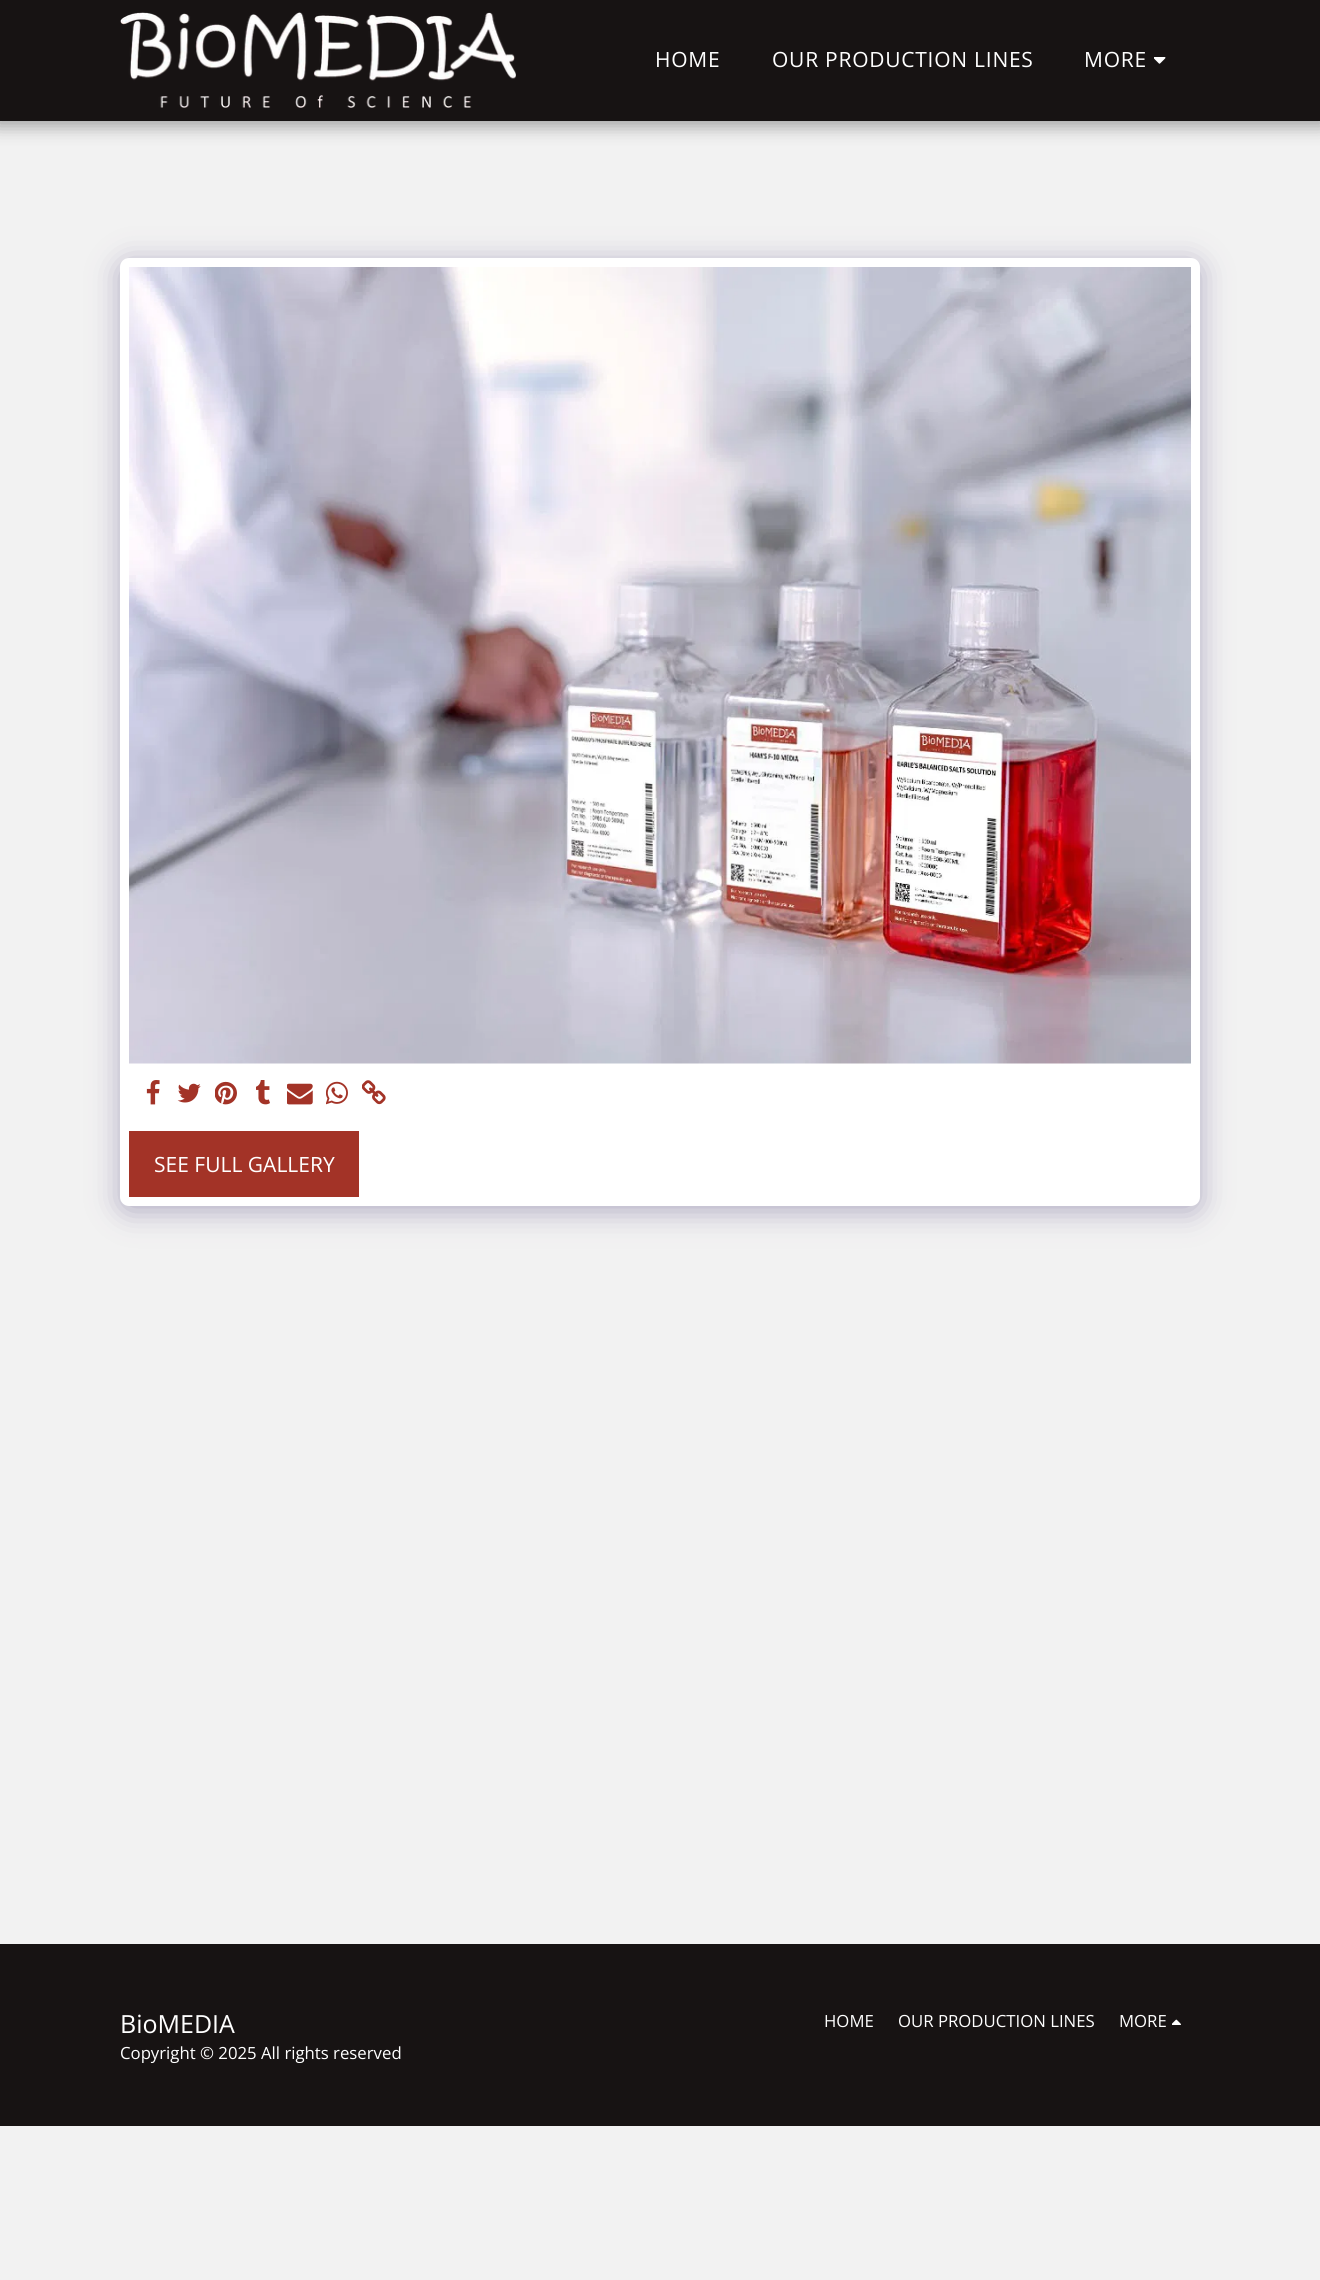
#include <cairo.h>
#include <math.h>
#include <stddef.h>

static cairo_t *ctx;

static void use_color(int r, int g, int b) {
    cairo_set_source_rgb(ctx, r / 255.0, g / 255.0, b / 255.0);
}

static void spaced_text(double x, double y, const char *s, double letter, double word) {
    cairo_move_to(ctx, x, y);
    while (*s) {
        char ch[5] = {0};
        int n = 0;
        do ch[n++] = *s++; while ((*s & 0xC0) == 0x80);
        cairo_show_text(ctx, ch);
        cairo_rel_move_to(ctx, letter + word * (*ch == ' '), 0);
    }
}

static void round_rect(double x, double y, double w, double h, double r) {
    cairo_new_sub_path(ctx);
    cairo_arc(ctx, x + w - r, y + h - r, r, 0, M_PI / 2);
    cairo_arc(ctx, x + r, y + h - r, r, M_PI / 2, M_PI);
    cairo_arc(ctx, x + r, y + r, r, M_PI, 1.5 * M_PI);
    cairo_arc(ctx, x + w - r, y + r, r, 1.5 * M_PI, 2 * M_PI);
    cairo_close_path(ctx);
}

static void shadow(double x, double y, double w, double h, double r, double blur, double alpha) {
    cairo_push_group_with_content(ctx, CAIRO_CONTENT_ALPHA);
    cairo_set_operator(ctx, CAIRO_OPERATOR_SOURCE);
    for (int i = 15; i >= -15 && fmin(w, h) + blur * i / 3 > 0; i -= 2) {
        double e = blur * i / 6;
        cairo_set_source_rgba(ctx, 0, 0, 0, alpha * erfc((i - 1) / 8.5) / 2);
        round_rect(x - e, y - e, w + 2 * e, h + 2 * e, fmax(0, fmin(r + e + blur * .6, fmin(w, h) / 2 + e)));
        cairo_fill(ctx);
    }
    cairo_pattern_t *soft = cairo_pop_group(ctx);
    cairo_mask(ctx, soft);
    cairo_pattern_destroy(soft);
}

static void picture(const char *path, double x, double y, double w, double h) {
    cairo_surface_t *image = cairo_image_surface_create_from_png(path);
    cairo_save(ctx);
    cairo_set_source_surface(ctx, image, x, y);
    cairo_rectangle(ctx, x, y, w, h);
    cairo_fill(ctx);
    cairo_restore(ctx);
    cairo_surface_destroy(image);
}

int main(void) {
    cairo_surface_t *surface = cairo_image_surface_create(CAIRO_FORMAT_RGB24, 1320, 2280);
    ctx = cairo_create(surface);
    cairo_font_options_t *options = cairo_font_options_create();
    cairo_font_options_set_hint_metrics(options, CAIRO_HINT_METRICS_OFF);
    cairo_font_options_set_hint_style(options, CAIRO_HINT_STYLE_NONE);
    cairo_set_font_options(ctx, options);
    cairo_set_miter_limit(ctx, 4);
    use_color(242, 242, 242);
    cairo_paint(ctx);
    use_color(0, 0, 0);
    shadow(-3, 0, 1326, 126, 0, 9, 0.35);
    use_color(23, 19, 19);
    cairo_rectangle(ctx, 0, 0, 1320, 121);
    cairo_fill(ctx);
    picture("img1.png", 120, 12, 396, 96);
    cairo_select_font_face(ctx, "Open Sans", CAIRO_FONT_SLANT_NORMAL, CAIRO_FONT_WEIGHT_NORMAL);
    cairo_set_font_size(ctx, 21);
    use_color(255, 255, 255);
    spaced_text(655, 67, "HOME", 0.75, 0);
    spaced_text(772, 67, "OUR PRODUCTION LINES", 0.75, 0);
    spaced_text(1084, 67, "MORE", 0.75, 0);
    picture("img2.png", 1154, 57, 12, 7);
    use_color(77, 63, 122);
    shadow(120, 263, 1080, 948, 9, 15, 0.4);
    use_color(255, 255, 255);
    round_rect(120, 258, 1080, 948, 9);
    cairo_fill(ctx);
    picture("img3.png", 129, 267, 1062, 797);
    picture("img4.png", 146, 1080, 14, 25);
    picture("img5.png", 177, 1083, 24, 20);
    picture("img6.png", 215, 1081, 22, 24);
    picture("img7.png", 256, 1080, 14, 25);
    picture("img8.png", 287, 1083, 26, 22);
    picture("img9.png", 326, 1081, 22, 24);
    picture("img10.png", 362, 1080, 24, 25);
    use_color(163, 51, 39);
    cairo_rectangle(ctx, 129, 1131, 230, 66);
    cairo_fill(ctx);
    use_color(255, 255, 255);
    cairo_move_to(ctx, 154, 1172);
    cairo_show_text(ctx, "SEE FULL GALLERY");
    use_color(23, 19, 19);
    cairo_rectangle(ctx, 0, 1944, 1320, 182);
    cairo_fill(ctx);
    cairo_set_font_size(ctx, 25);
    use_color(255, 255, 255);
    cairo_move_to(ctx, 120, 2033);
    cairo_show_text(ctx, "BioMEDIA");
    cairo_set_font_size(ctx, 16.75);
    cairo_move_to(ctx, 120, 2059);
    cairo_show_text(ctx, "Copyright © 2025 All rights reserved");
    cairo_move_to(ctx, 824, 2027);
    cairo_show_text(ctx, "HOME");
    cairo_move_to(ctx, 898, 2027);
    cairo_show_text(ctx, "OUR PRODUCTION LINES");
    cairo_move_to(ctx, 1119, 2027);
    cairo_show_text(ctx, "MORE");
    picture("img11.png", 1172, 2019, 9, 6);
    cairo_surface_write_to_png(surface, "result.png");
    cairo_font_options_destroy(options);
    cairo_destroy(ctx);
    cairo_surface_destroy(surface);
    return 0;
}
